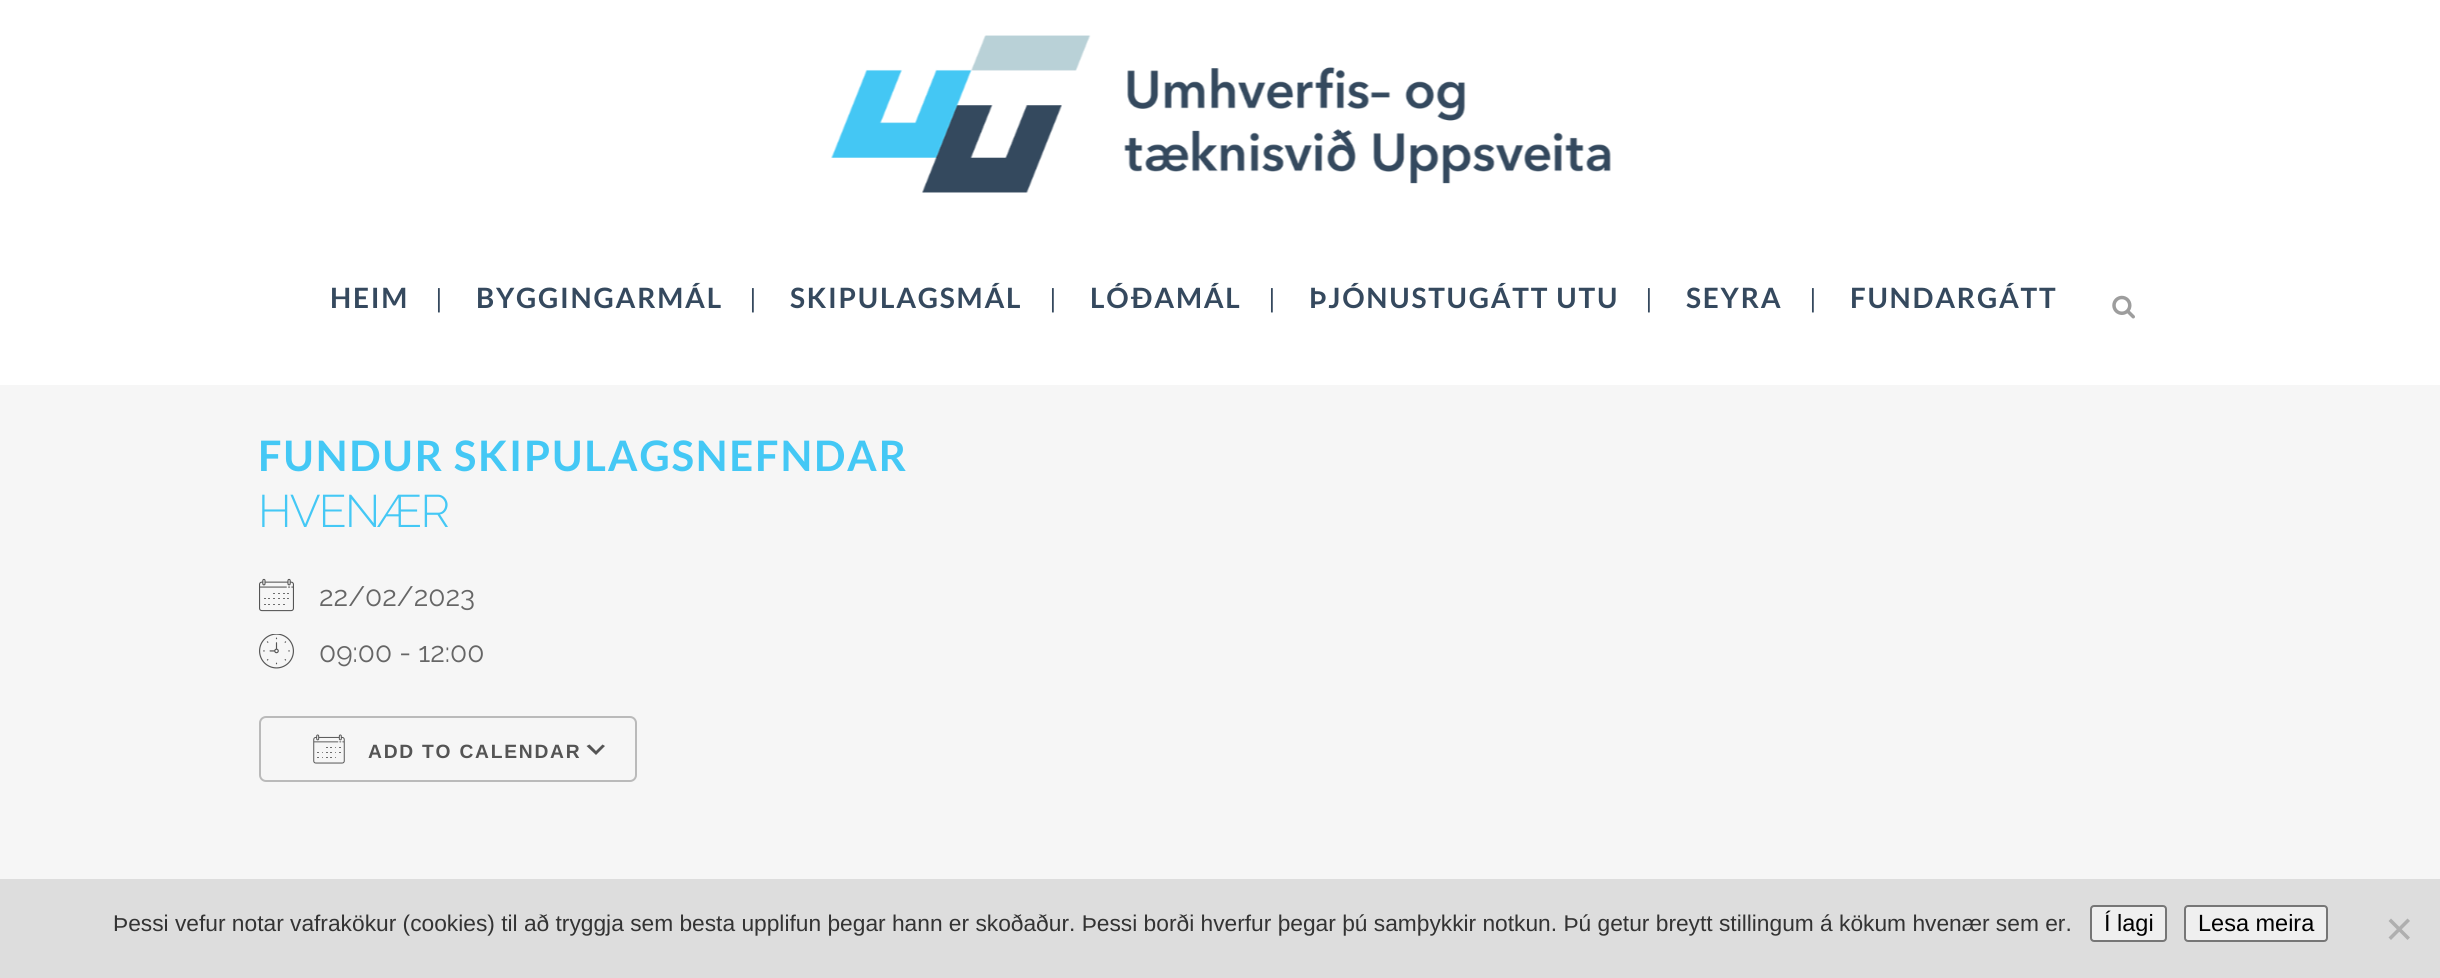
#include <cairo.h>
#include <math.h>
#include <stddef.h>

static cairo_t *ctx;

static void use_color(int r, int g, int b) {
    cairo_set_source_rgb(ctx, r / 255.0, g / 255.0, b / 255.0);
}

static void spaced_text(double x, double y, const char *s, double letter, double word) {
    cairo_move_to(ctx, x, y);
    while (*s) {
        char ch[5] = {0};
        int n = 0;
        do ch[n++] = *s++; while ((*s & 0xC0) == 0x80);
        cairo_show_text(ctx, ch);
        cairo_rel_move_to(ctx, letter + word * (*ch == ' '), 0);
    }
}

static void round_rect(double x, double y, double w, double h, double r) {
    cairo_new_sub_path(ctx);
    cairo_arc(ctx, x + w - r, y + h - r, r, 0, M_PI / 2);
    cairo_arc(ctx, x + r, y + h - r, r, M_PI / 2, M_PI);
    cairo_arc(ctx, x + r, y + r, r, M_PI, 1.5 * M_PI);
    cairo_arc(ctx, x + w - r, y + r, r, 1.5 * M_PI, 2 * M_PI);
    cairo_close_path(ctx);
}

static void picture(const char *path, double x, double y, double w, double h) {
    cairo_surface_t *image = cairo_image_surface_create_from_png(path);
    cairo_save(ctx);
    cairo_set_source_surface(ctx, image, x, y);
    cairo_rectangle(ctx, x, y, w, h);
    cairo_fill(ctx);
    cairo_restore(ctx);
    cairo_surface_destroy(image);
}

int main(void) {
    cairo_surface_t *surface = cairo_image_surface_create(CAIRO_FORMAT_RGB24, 2440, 978);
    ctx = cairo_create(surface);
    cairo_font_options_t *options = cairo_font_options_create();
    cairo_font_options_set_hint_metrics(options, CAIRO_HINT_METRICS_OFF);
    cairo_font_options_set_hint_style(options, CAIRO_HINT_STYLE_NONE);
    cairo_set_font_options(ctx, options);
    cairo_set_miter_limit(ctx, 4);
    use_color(246, 246, 246);
    cairo_paint(ctx);
    use_color(255, 255, 255);
    cairo_rectangle(ctx, 0, 0, 2440, 385);
    cairo_fill(ctx);
    picture("img1.png", 831, 35, 780, 158);
    cairo_select_font_face(ctx, "Lato", CAIRO_FONT_SLANT_NORMAL, CAIRO_FONT_WEIGHT_BOLD);
    cairo_set_font_size(ctx, 28);
    use_color(53, 73, 94);
    spaced_text(330, 308, "HEIM", 1.75, 0);
    cairo_select_font_face(ctx, "Lato", CAIRO_FONT_SLANT_NORMAL, CAIRO_FONT_WEIGHT_NORMAL);
    cairo_set_font_size(ctx, 26);
    cairo_move_to(ctx, 435, 308);
    cairo_show_text(ctx, "|");
    cairo_select_font_face(ctx, "Lato", CAIRO_FONT_SLANT_NORMAL, CAIRO_FONT_WEIGHT_BOLD);
    cairo_set_font_size(ctx, 28);
    spaced_text(476, 308, "BYGGINGARMÁL", 1.75, 0);
    cairo_select_font_face(ctx, "Lato", CAIRO_FONT_SLANT_NORMAL, CAIRO_FONT_WEIGHT_NORMAL);
    cairo_set_font_size(ctx, 26);
    cairo_move_to(ctx, 749, 308);
    cairo_show_text(ctx, "|");
    cairo_select_font_face(ctx, "Lato", CAIRO_FONT_SLANT_NORMAL, CAIRO_FONT_WEIGHT_BOLD);
    cairo_set_font_size(ctx, 28);
    spaced_text(790, 308, "SKIPULAGSMÁL", 1.75, 0);
    cairo_select_font_face(ctx, "Lato", CAIRO_FONT_SLANT_NORMAL, CAIRO_FONT_WEIGHT_NORMAL);
    cairo_set_font_size(ctx, 26);
    cairo_move_to(ctx, 1049, 308);
    cairo_show_text(ctx, "|");
    cairo_select_font_face(ctx, "Lato", CAIRO_FONT_SLANT_NORMAL, CAIRO_FONT_WEIGHT_BOLD);
    cairo_set_font_size(ctx, 28);
    spaced_text(1090, 308, "LÓÐAMÁL", 1.75, 0);
    cairo_select_font_face(ctx, "Lato", CAIRO_FONT_SLANT_NORMAL, CAIRO_FONT_WEIGHT_NORMAL);
    cairo_set_font_size(ctx, 26);
    cairo_move_to(ctx, 1268, 308);
    cairo_show_text(ctx, "|");
    cairo_select_font_face(ctx, "Lato", CAIRO_FONT_SLANT_NORMAL, CAIRO_FONT_WEIGHT_BOLD);
    cairo_set_font_size(ctx, 28);
    spaced_text(1309, 308, "ÞJÓNUSTUGÁTT UTU", 1.75, 0);
    cairo_select_font_face(ctx, "Lato", CAIRO_FONT_SLANT_NORMAL, CAIRO_FONT_WEIGHT_NORMAL);
    cairo_set_font_size(ctx, 26);
    cairo_move_to(ctx, 1645, 308);
    cairo_show_text(ctx, "|");
    cairo_select_font_face(ctx, "Lato", CAIRO_FONT_SLANT_NORMAL, CAIRO_FONT_WEIGHT_BOLD);
    cairo_set_font_size(ctx, 28);
    spaced_text(1686, 308, "SEYRA", 1.75, 0);
    cairo_select_font_face(ctx, "Lato", CAIRO_FONT_SLANT_NORMAL, CAIRO_FONT_WEIGHT_NORMAL);
    cairo_set_font_size(ctx, 26);
    cairo_move_to(ctx, 1809, 308);
    cairo_show_text(ctx, "|");
    cairo_select_font_face(ctx, "Lato", CAIRO_FONT_SLANT_NORMAL, CAIRO_FONT_WEIGHT_BOLD);
    cairo_set_font_size(ctx, 28);
    spaced_text(1850, 308, "FUNDARGÁTT", 1.75, 0);
    picture("img2.png", 2112, 295, 23, 24);
    cairo_set_font_size(ctx, 42);
    use_color(68, 200, 245);
    spaced_text(258, 471, "FUNDUR SKIPULAGSNEFNDAR", 1.75, 0);
    cairo_select_font_face(ctx, "Raleway Light", CAIRO_FONT_SLANT_NORMAL, CAIRO_FONT_WEIGHT_NORMAL);
    cairo_set_font_size(ctx, 45.5);
    spaced_text(258, 527, "HVENÆR", -1.75, 0);
    picture("img3.png", 259, 578, 35, 34);
    cairo_select_font_face(ctx, "Raleway", CAIRO_FONT_SLANT_NORMAL, CAIRO_FONT_WEIGHT_NORMAL);
    cairo_set_font_size(ctx, 28);
    use_color(102, 102, 102);
    cairo_move_to(ctx, 319, 606);
    cairo_show_text(ctx, "22/02/2023");
    picture("img4.png", 259, 634, 35, 35);
    cairo_move_to(ctx, 319, 662);
    cairo_show_text(ctx, "09:00 - 12:00");
    use_color(85, 85, 85);
    cairo_new_path(ctx);
    cairo_move_to(ctx, 589.5, 744.5);
    cairo_line_to(ctx, 596, 751);
    cairo_line_to(ctx, 602.5, 744.5);
    cairo_line_to(ctx, 605, 746);
    cairo_line_to(ctx, 596, 755);
    cairo_line_to(ctx, 586.5, 746);
    cairo_close_path(ctx);
    cairo_fill(ctx);
    round_rect(260, 717, 376, 64, 6);
    use_color(186, 186, 186);
    cairo_stroke(ctx);
    picture("img5.png", 313, 734, 32, 30);
    cairo_select_font_face(ctx, "Liberation Sans", CAIRO_FONT_SLANT_NORMAL, CAIRO_FONT_WEIGHT_BOLD);
    cairo_set_font_size(ctx, 19.25);
    use_color(84, 84, 84);
    spaced_text(368, 758, "ADD TO CALENDAR", 1.75, 0);
    use_color(221, 221, 221);
    cairo_rectangle(ctx, 0, 879, 2440, 99);
    cairo_fill(ctx);
    cairo_select_font_face(ctx, "Liberation Sans", CAIRO_FONT_SLANT_NORMAL, CAIRO_FONT_WEIGHT_NORMAL);
    cairo_set_font_size(ctx, 22.75);
    use_color(51, 51, 51);
    cairo_move_to(ctx, 113, 931);
    cairo_show_text(ctx, "Þessi vefur notar vafrakökur (cookies) til að tryggja sem besta upplifun þegar hann er skoðaður. Þessi borði hverfur þegar þú samþykkir notkun. Þú getur breytt stillingum á kökum hvenær sem er.");
    use_color(239, 239, 239);
    round_rect(2091, 906, 75, 35, 3);
    cairo_fill_preserve(ctx);
    use_color(118, 118, 118);
    cairo_stroke(ctx);
    cairo_set_font_size(ctx, 23.5);
    use_color(0, 0, 0);
    cairo_move_to(ctx, 2104, 931);
    cairo_show_text(ctx, "Í lagi");
    use_color(239, 239, 239);
    round_rect(2185, 906, 142, 35, 3);
    cairo_fill_preserve(ctx);
    use_color(118, 118, 118);
    cairo_stroke(ctx);
    use_color(0, 0, 0);
    cairo_move_to(ctx, 2198, 931);
    cairo_show_text(ctx, "Lesa meira");
    use_color(175, 175, 175);
    cairo_new_path(ctx);
    cairo_move_to(ctx, 2407.5, 918.5);
    cairo_line_to(ctx, 2410, 921);
    cairo_line_to(ctx, 2391, 940);
    cairo_line_to(ctx, 2388.5, 937.5);
    cairo_close_path(ctx);
    cairo_fill(ctx);
    cairo_new_path(ctx);
    cairo_move_to(ctx, 2388.5, 921);
    cairo_line_to(ctx, 2391, 918.5);
    cairo_line_to(ctx, 2410, 937.5);
    cairo_line_to(ctx, 2407.5, 940);
    cairo_close_path(ctx);
    cairo_fill(ctx);
    cairo_surface_write_to_png(surface, "result.png");
    cairo_font_options_destroy(options);
    cairo_destroy(ctx);
    cairo_surface_destroy(surface);
    return 0;
}
